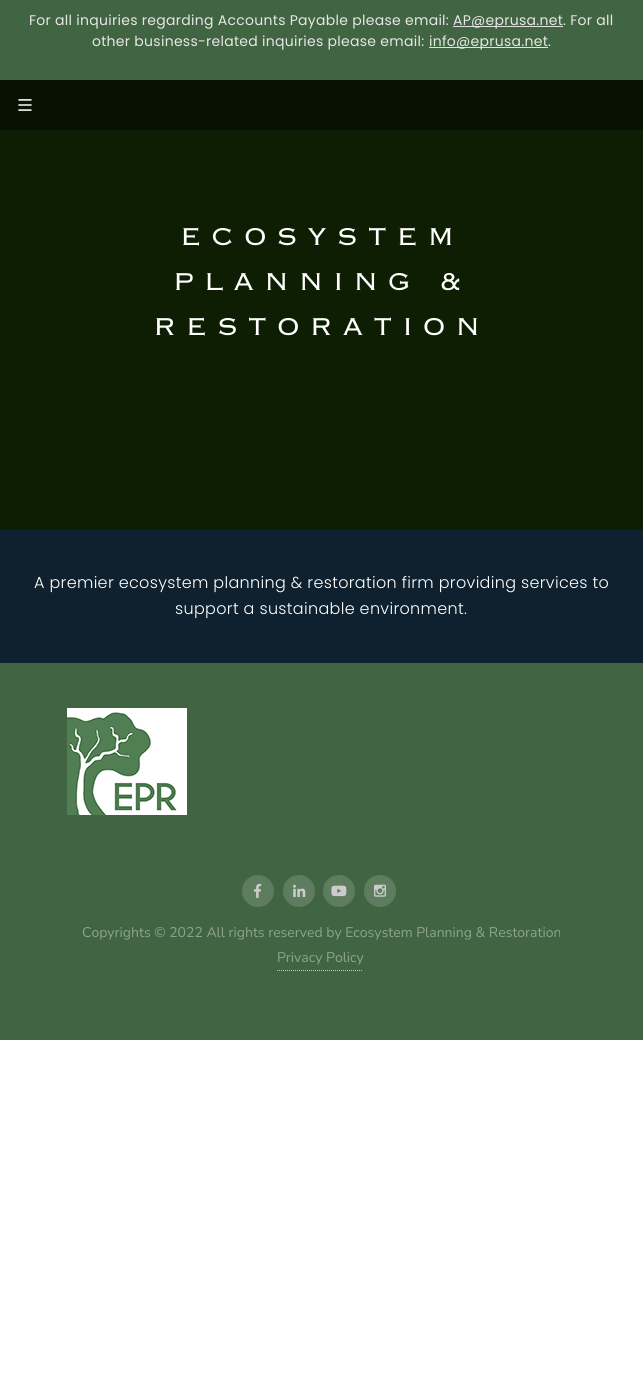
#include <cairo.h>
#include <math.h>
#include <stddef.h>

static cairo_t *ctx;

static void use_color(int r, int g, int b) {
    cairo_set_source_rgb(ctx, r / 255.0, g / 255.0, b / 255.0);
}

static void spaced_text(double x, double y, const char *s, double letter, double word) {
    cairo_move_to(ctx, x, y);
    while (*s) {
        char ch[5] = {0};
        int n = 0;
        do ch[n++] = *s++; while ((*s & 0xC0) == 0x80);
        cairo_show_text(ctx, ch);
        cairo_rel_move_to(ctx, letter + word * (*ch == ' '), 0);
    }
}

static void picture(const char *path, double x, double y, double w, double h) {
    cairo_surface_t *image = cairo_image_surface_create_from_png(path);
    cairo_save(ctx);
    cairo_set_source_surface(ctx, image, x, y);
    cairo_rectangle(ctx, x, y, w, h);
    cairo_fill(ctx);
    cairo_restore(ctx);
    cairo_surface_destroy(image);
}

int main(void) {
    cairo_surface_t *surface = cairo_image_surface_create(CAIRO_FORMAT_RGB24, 643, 1390);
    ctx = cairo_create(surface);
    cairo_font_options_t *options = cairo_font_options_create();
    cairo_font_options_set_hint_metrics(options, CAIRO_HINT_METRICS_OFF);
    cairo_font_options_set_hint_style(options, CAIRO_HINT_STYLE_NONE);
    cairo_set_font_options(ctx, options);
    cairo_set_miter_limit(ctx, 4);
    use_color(255, 255, 255);
    cairo_paint(ctx);
    use_color(65, 101, 66);
    cairo_rectangle(ctx, 0, 0, 643, 80);
    cairo_fill(ctx);
    cairo_select_font_face(ctx, "Poppins", CAIRO_FONT_SLANT_NORMAL, CAIRO_FONT_WEIGHT_NORMAL);
    cairo_set_font_size(ctx, 14);
    use_color(230, 230, 230);
    spaced_text(29, 25, "For all inquiries regarding Accounts Payable please email:", 0.28, 0);
    use_color(225, 225, 225);
    cairo_rectangle(ctx, 453, 26, 110, 1);
    cairo_fill(ctx);
    use_color(230, 230, 230);
    spaced_text(453, 25, "AP@eprusa.net", 0.28, 0);
    spaced_text(563, 25, ". For all", 0.28, 0);
    spaced_text(92, 46, "other business-related inquiries please email:", 0.28, 0);
    use_color(225, 225, 225);
    cairo_rectangle(ctx, 429, 47, 119, 1);
    cairo_fill(ctx);
    use_color(230, 230, 230);
    spaced_text(429, 46, "info@eprusa.net", 0.28, 0);
    spaced_text(548, 46, ".", 0.28, 0);
    use_color(8, 18, 2);
    cairo_rectangle(ctx, 0, 80, 643, 50);
    cairo_fill(ctx);
    picture("img1.png", 18, 99, 14, 12);
    use_color(14, 30, 3);
    cairo_rectangle(ctx, 0, 130, 643, 400);
    cairo_fill(ctx);
    cairo_select_font_face(ctx, "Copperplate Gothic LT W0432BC", CAIRO_FONT_SLANT_NORMAL, CAIRO_FONT_WEIGHT_NORMAL);
    cairo_set_font_size(ctx, 32);
    use_color(255, 255, 255);
    spaced_text(180, 245, "ECOSYSTEM", 9.6, 0);
    spaced_text(173, 290, "PLANNING &", 9.6, 0);
    spaced_text(153, 335, "RESTORATION", 9.6, 0);
    use_color(15, 33, 46);
    cairo_rectangle(ctx, 0, 530, 643, 133);
    cairo_fill(ctx);
    cairo_select_font_face(ctx, "Poppins Light", CAIRO_FONT_SLANT_NORMAL, CAIRO_FONT_WEIGHT_NORMAL);
    cairo_set_font_size(ctx, 16);
    use_color(255, 255, 255);
    spaced_text(34, 588, "A premier ecosystem planning & restoration firm providing services to", 0.32, 0);
    spaced_text(175, 614, "support a sustainable environment.", 0.32, 0);
    use_color(65, 101, 66);
    cairo_rectangle(ctx, 0, 663, 643, 377);
    cairo_fill(ctx);
    picture("img2.png", 67, 708, 120, 107);
    use_color(94, 124, 94);
    cairo_arc(ctx, 258, 891, 16, 0, 2 * M_PI);
    cairo_fill(ctx);
    picture("img3.png", 254, 883, 8, 15);
    cairo_arc(ctx, 299, 891, 16, 0, 2 * M_PI);
    cairo_fill(ctx);
    picture("img4.png", 293, 884, 13, 13);
    cairo_arc(ctx, 339, 891, 16, 0, 2 * M_PI);
    cairo_fill(ctx);
    picture("img5.png", 331, 885, 16, 12);
    cairo_arc(ctx, 380, 891, 16, 0, 2 * M_PI);
    cairo_fill(ctx);
    picture("img6.png", 374, 884, 12, 13);
    cairo_select_font_face(ctx, "Nunito Sans", CAIRO_FONT_SLANT_NORMAL, CAIRO_FONT_WEIGHT_NORMAL);
    cairo_set_font_size(ctx, 14);
    use_color(141, 163, 142);
    cairo_move_to(ctx, 82, 937);
    cairo_show_text(ctx, "Copyrights © 2022 All rights reserved by Ecosystem Planning & Restoration");
    cairo_new_path(ctx);
    cairo_move_to(ctx, 277, 970.5);
    cairo_line_to(ctx, 363, 970.5);
    use_color(189, 201, 189);
    cairo_set_line_width(ctx, 1);
    cairo_set_dash(ctx, (double[]){1, 1}, 2, 0);
    cairo_stroke(ctx);
    use_color(141, 163, 142);
    cairo_move_to(ctx, 277, 962);
    cairo_show_text(ctx, "Privacy Policy");
    cairo_surface_write_to_png(surface, "result.png");
    cairo_font_options_destroy(options);
    cairo_destroy(ctx);
    cairo_surface_destroy(surface);
    return 0;
}
